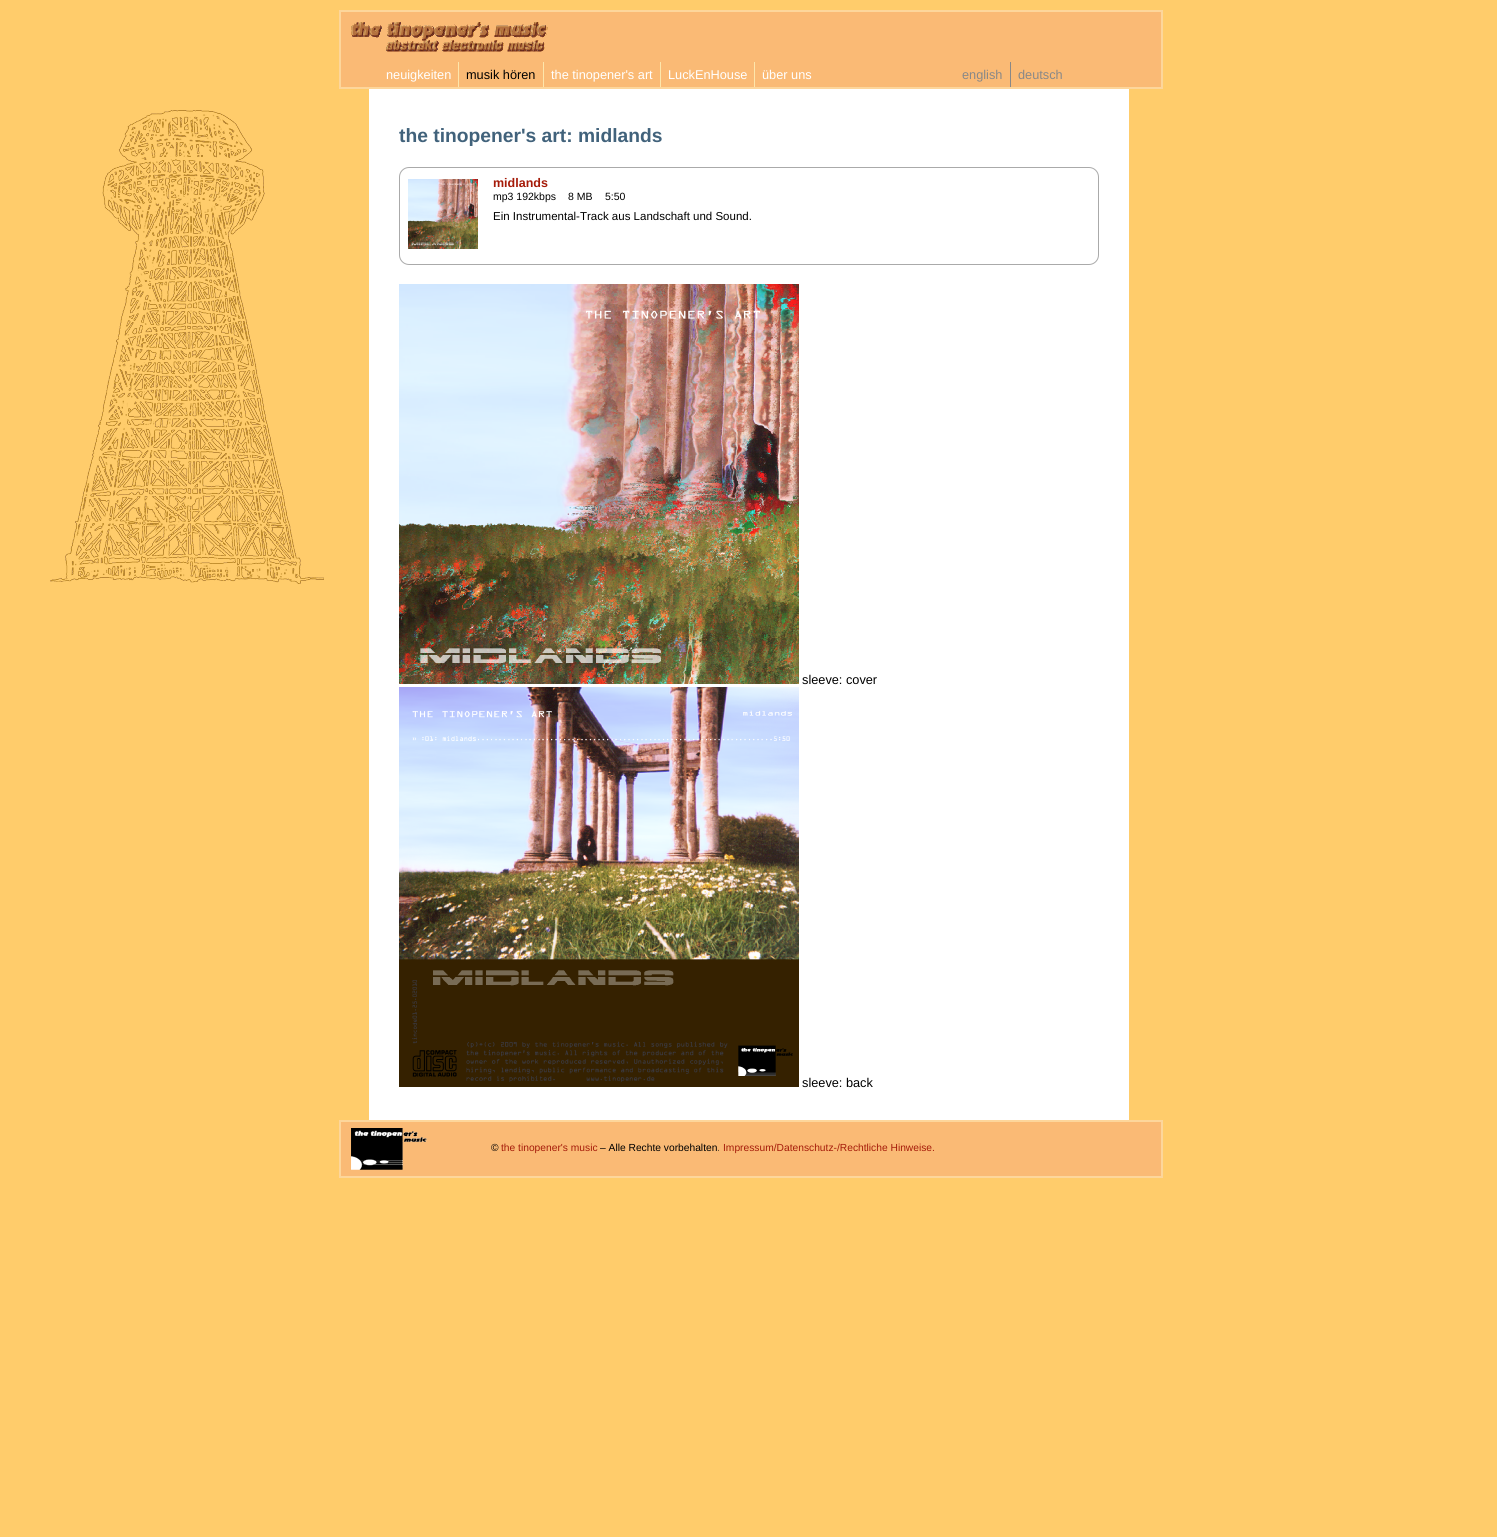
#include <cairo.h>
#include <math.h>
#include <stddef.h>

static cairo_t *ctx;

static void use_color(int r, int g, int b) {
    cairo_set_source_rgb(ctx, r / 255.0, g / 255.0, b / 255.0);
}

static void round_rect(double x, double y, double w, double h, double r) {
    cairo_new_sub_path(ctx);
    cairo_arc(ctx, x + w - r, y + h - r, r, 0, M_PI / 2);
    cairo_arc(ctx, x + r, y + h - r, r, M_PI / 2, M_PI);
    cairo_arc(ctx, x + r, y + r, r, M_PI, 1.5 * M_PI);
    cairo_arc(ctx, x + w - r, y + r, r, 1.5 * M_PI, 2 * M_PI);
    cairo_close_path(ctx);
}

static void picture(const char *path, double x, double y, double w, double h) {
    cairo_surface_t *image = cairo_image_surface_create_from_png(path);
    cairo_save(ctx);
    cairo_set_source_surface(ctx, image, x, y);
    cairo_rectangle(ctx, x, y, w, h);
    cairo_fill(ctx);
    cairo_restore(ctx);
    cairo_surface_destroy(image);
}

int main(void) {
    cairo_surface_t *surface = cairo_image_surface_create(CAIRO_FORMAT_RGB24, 1497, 1537);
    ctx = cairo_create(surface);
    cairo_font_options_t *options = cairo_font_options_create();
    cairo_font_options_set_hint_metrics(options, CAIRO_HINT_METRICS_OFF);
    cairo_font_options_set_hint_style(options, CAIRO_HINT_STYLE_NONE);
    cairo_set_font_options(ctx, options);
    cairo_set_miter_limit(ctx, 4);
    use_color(255, 204, 107);
    cairo_paint(ctx);
    picture("img1.png", 50, 110, 274, 474);
    use_color(250, 186, 117);
    cairo_rectangle(ctx, 340, 11, 822, 77);
    cairo_fill_preserve(ctx);
    use_color(253, 214, 155);
    cairo_stroke(ctx);
    picture("img2.png", 351, 22, 197, 30);
    cairo_select_font_face(ctx, "Liberation Sans", CAIRO_FONT_SLANT_NORMAL, CAIRO_FONT_WEIGHT_NORMAL);
    cairo_set_font_size(ctx, 12.75);
    use_color(255, 255, 255);
    cairo_move_to(ctx, 386, 79);
    cairo_show_text(ctx, "neuigkeiten");
    use_color(253, 230, 171);
    cairo_rectangle(ctx, 458, 62, 1, 25);
    cairo_fill(ctx);
    use_color(0, 0, 0);
    cairo_move_to(ctx, 466, 79);
    cairo_show_text(ctx, "musik hören");
    use_color(253, 230, 171);
    cairo_rectangle(ctx, 543, 62, 1, 25);
    cairo_fill(ctx);
    use_color(255, 255, 255);
    cairo_move_to(ctx, 551, 79);
    cairo_show_text(ctx, "the tinopener's art");
    use_color(253, 230, 171);
    cairo_rectangle(ctx, 660, 62, 1, 25);
    cairo_fill(ctx);
    use_color(255, 255, 255);
    cairo_move_to(ctx, 668, 79);
    cairo_show_text(ctx, "LuckEnHouse");
    use_color(253, 230, 171);
    cairo_rectangle(ctx, 754, 62, 1, 25);
    cairo_fill(ctx);
    use_color(255, 255, 255);
    cairo_move_to(ctx, 762, 79);
    cairo_show_text(ctx, "über uns");
    use_color(136, 136, 136);
    cairo_move_to(ctx, 962, 79);
    cairo_show_text(ctx, "english");
    cairo_rectangle(ctx, 1010, 62, 1, 25);
    cairo_fill(ctx);
    cairo_move_to(ctx, 1018, 79);
    cairo_show_text(ctx, "deutsch");
    use_color(255, 255, 255);
    cairo_rectangle(ctx, 369, 89, 760, 1031);
    cairo_fill(ctx);
    cairo_select_font_face(ctx, "Liberation Sans", CAIRO_FONT_SLANT_NORMAL, CAIRO_FONT_WEIGHT_BOLD);
    cairo_set_font_size(ctx, 19.25);
    use_color(65, 98, 123);
    cairo_move_to(ctx, 399, 142);
    cairo_show_text(ctx, "the tinopener's art: midlands");
    round_rect(399.5, 167.5, 699, 97, 9.5);
    use_color(170, 170, 170);
    cairo_set_line_width(ctx, 1);
    cairo_stroke(ctx);
    picture("img3.png", 408, 179, 70, 70);
    cairo_set_font_size(ctx, 12.5);
    use_color(165, 27, 9);
    cairo_move_to(ctx, 493, 187);
    cairo_show_text(ctx, "midlands");
    cairo_select_font_face(ctx, "Liberation Sans", CAIRO_FONT_SLANT_NORMAL, CAIRO_FONT_WEIGHT_NORMAL);
    cairo_set_font_size(ctx, 10.5);
    use_color(0, 0, 0);
    cairo_move_to(ctx, 493, 200);
    cairo_show_text(ctx, "mp3 192kbps");
    cairo_move_to(ctx, 568, 200);
    cairo_show_text(ctx, "8 MB");
    cairo_move_to(ctx, 605, 200);
    cairo_show_text(ctx, "5:50");
    cairo_set_font_size(ctx, 11.5);
    cairo_move_to(ctx, 493, 220);
    cairo_show_text(ctx, "Ein Instrumental-Track aus Landschaft und Sound.");
    picture("img4.png", 399, 284, 400, 400);
    cairo_set_font_size(ctx, 12.75);
    cairo_move_to(ctx, 802, 684);
    cairo_show_text(ctx, "sleeve: cover");
    picture("img5.png", 399, 687, 400, 400);
    cairo_move_to(ctx, 802, 1087);
    cairo_show_text(ctx, "sleeve: back");
    use_color(250, 186, 117);
    cairo_rectangle(ctx, 340, 1121, 822, 56);
    cairo_fill_preserve(ctx);
    use_color(253, 214, 155);
    cairo_set_line_width(ctx, 2);
    cairo_stroke(ctx);
    picture("img6.png", 351, 1128, 76, 42);
    cairo_set_font_size(ctx, 10.25);
    use_color(0, 0, 0);
    cairo_move_to(ctx, 491, 1151);
    cairo_show_text(ctx, "©");
    use_color(165, 27, 9);
    cairo_move_to(ctx, 501, 1151);
    cairo_show_text(ctx, "the tinopener's music");
    use_color(0, 0, 0);
    cairo_move_to(ctx, 600, 1151);
    cairo_show_text(ctx, "– Alle Rechte vorbehalten.");
    use_color(165, 27, 9);
    cairo_move_to(ctx, 723, 1151);
    cairo_show_text(ctx, "Impressum/Datenschutz-/Rechtliche Hinweise.");
    cairo_surface_write_to_png(surface, "result.png");
    cairo_font_options_destroy(options);
    cairo_destroy(ctx);
    cairo_surface_destroy(surface);
    return 0;
}
